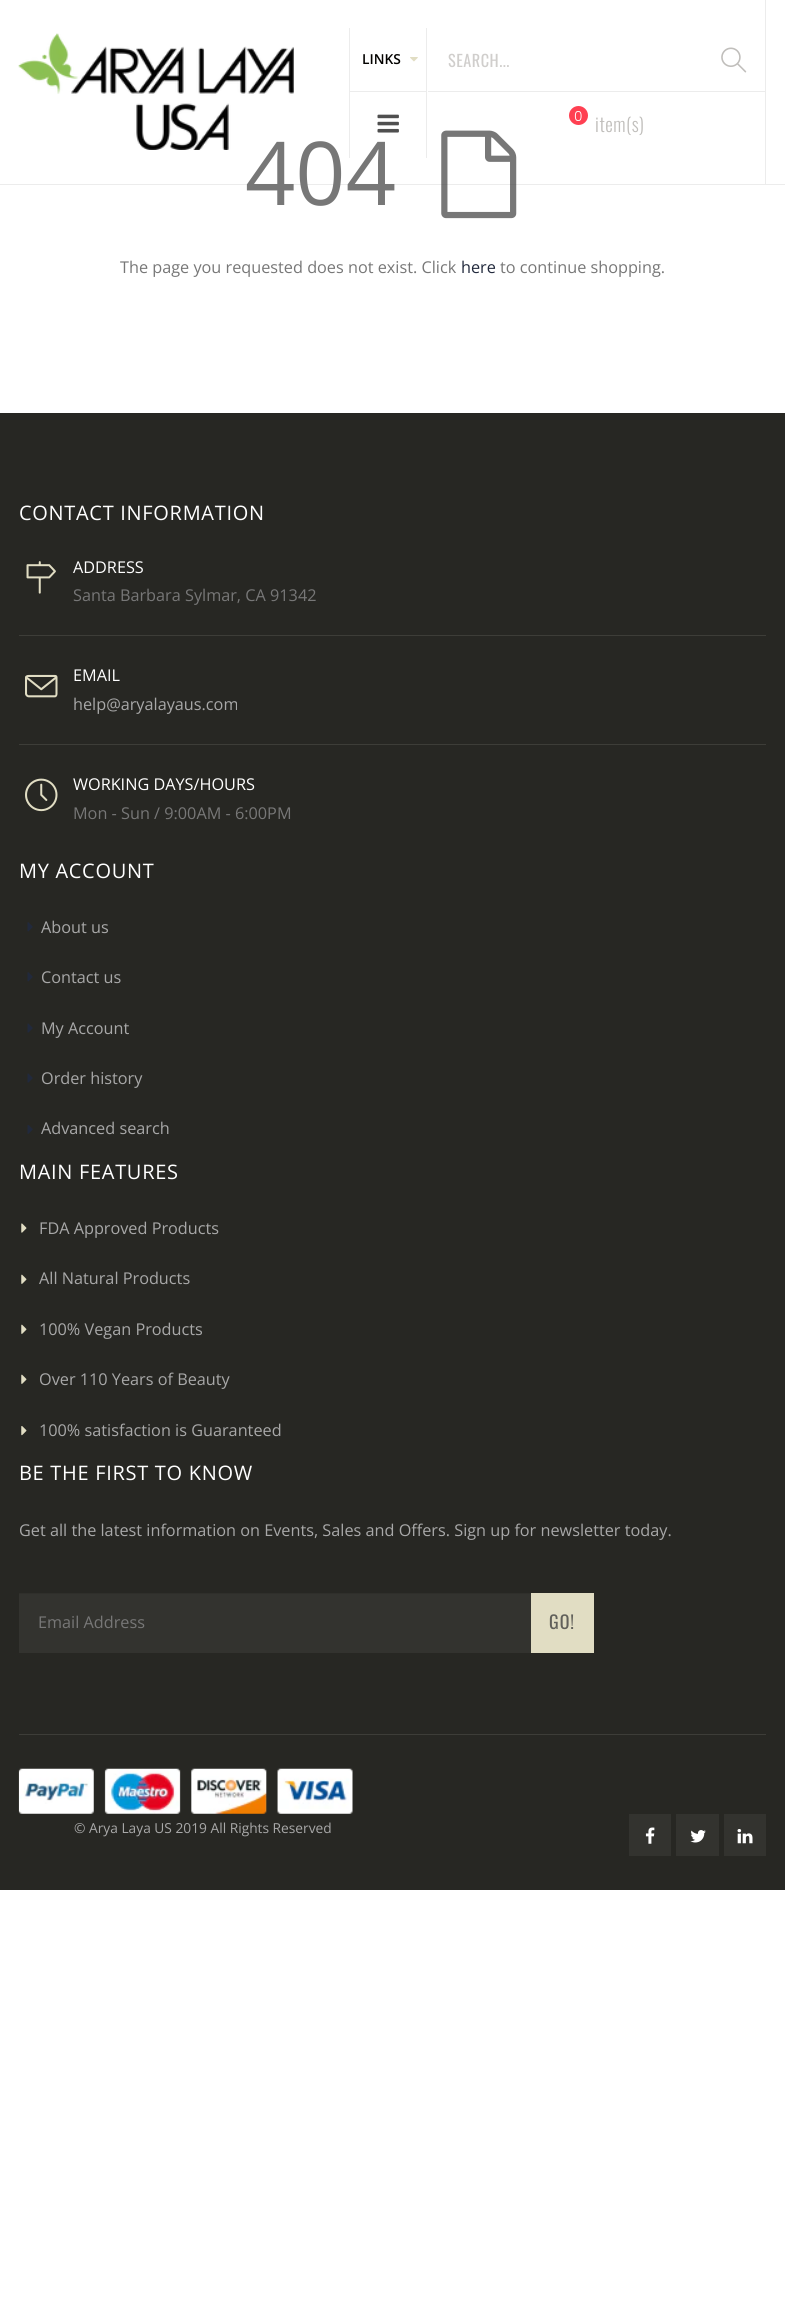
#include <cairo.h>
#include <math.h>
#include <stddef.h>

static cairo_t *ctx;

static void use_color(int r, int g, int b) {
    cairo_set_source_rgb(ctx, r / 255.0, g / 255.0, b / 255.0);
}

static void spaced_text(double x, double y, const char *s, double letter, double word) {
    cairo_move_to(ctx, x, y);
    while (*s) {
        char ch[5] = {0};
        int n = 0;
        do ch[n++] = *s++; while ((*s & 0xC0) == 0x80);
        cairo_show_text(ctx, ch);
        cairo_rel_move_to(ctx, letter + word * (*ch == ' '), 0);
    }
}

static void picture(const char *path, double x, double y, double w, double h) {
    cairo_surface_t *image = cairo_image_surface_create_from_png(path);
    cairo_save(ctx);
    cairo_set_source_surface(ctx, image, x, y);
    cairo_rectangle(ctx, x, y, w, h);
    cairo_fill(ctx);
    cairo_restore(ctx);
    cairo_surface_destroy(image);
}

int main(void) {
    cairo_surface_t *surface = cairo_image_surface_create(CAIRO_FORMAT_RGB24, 785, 2303);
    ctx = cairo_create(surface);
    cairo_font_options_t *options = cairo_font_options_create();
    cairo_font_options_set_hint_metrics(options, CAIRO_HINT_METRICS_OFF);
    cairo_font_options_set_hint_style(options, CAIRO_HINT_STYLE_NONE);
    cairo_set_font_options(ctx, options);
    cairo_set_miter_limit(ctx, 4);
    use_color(255, 255, 255);
    cairo_paint(ctx);
    picture("img5.png", 441, 130, 76, 89);
    cairo_set_source_rgba(ctx, 0.235, 0.235, 0.235, 0.1);
    cairo_rectangle(ctx, 0, 184, 785, 1);
    cairo_fill(ctx);
    use_color(236, 236, 236);
    cairo_rectangle(ctx, 765, 0, 1, 184);
    cairo_fill(ctx);
    cairo_select_font_face(ctx, "Open Sans", CAIRO_FONT_SLANT_NORMAL, CAIRO_FONT_WEIGHT_NORMAL);
    cairo_set_font_size(ctx, 88);
    use_color(119, 119, 119);
    cairo_move_to(ctx, 245, 205);
    cairo_show_text(ctx, "404");
    picture("img1.png", 18, 33, 276, 117);
    use_color(236, 236, 236);
    cairo_rectangle(ctx, 426, 28, 1, 130);
    cairo_fill(ctx);
    cairo_rectangle(ctx, 349, 28, 1, 130);
    cairo_fill(ctx);
    cairo_rectangle(ctx, 350, 91, 76, 1);
    cairo_fill(ctx);
    cairo_select_font_face(ctx, "Open Sans SemiBold", CAIRO_FONT_SLANT_NORMAL, CAIRO_FONT_WEIGHT_NORMAL);
    cairo_set_font_size(ctx, 13.75);
    use_color(3, 2, 0);
    cairo_move_to(ctx, 362, 64);
    cairo_show_text(ctx, "LINKS");
    picture("img2.png", 410, 57, 8, 5);
    picture("img3.png", 377, 114, 22, 19);
    use_color(236, 236, 236);
    cairo_rectangle(ctx, 428, 91, 337, 1);
    cairo_fill(ctx);
    cairo_select_font_face(ctx, "Oswald", CAIRO_FONT_SLANT_NORMAL, CAIRO_FONT_WEIGHT_NORMAL);
    cairo_set_font_size(ctx, 16.25);
    use_color(208, 206, 204);
    spaced_text(448, 67, "SEARCH...", 0.5, 0);
    picture("img4.png", 721, 47, 26, 26);
    use_color(255, 64, 82);
    cairo_arc(ctx, 578.5, 115.5, 9.5, 0, 2 * M_PI);
    cairo_fill(ctx);
    cairo_select_font_face(ctx, "Poppins Light", CAIRO_FONT_SLANT_NORMAL, CAIRO_FONT_WEIGHT_NORMAL);
    cairo_set_font_size(ctx, 13.75);
    use_color(255, 255, 255);
    cairo_move_to(ctx, 574, 121);
    cairo_show_text(ctx, "0");
    cairo_select_font_face(ctx, "Oswald Light", CAIRO_FONT_SLANT_NORMAL, CAIRO_FONT_WEIGHT_NORMAL);
    cairo_set_font_size(ctx, 19);
    use_color(192, 190, 187);
    spaced_text(595, 132, "item(s)", 0.5, 0);
    cairo_select_font_face(ctx, "Open Sans", CAIRO_FONT_SLANT_NORMAL, CAIRO_FONT_WEIGHT_NORMAL);
    cairo_set_font_size(ctx, 16.25);
    use_color(119, 119, 119);
    cairo_move_to(ctx, 120, 273);
    cairo_show_text(ctx, "The page you requested does not exist. Click");
    use_color(33, 41, 60);
    cairo_move_to(ctx, 461, 273);
    cairo_show_text(ctx, "here");
    use_color(119, 119, 119);
    cairo_move_to(ctx, 500, 273);
    cairo_show_text(ctx, "to continue shopping.");
    use_color(39, 39, 35);
    cairo_rectangle(ctx, 0, 413, 785, 1477);
    cairo_fill(ctx);
    cairo_set_font_size(ctx, 20);
    use_color(255, 255, 255);
    spaced_text(19, 520, "CONTACT INFORMATION", 0.7, 0);
    picture("img6.png", 26, 561, 30, 33);
    cairo_set_font_size(ctx, 16.25);
    cairo_move_to(ctx, 73, 573);
    cairo_show_text(ctx, "ADDRESS");
    use_color(119, 119, 119);
    cairo_move_to(ctx, 73, 601);
    cairo_show_text(ctx, "Santa Barbara Sylmar, CA 91342");
    use_color(61, 61, 56);
    cairo_rectangle(ctx, 19, 635, 747, 1);
    cairo_fill(ctx);
    picture("img7.png", 25, 674, 33, 24);
    use_color(255, 255, 255);
    cairo_move_to(ctx, 73, 681);
    cairo_show_text(ctx, "EMAIL");
    use_color(168, 168, 168);
    cairo_move_to(ctx, 73, 710);
    cairo_show_text(ctx, "help@aryalayaus.com");
    use_color(61, 61, 56);
    cairo_rectangle(ctx, 19, 744, 747, 1);
    cairo_fill(ctx);
    picture("img8.png", 25, 778, 33, 34);
    use_color(255, 255, 255);
    cairo_move_to(ctx, 73, 790);
    cairo_show_text(ctx, "WORKING DAYS/HOURS");
    use_color(119, 119, 119);
    cairo_move_to(ctx, 73, 819);
    cairo_show_text(ctx, "Mon - Sun / 9:00AM - 6:00PM");
    cairo_set_font_size(ctx, 20);
    use_color(255, 255, 255);
    spaced_text(19, 878, "MY ACCOUNT", 0.7, 0);
    picture("img9.png", 27, 922, 6, 10);
    cairo_set_font_size(ctx, 16.25);
    use_color(168, 168, 168);
    cairo_move_to(ctx, 41, 933);
    cairo_show_text(ctx, "About us");
    picture("img9.png", 27, 972, 6, 10);
    cairo_move_to(ctx, 41, 983);
    cairo_show_text(ctx, "Contact us");
    picture("img10.png", 27, 1023, 6, 10);
    cairo_move_to(ctx, 41, 1034);
    cairo_show_text(ctx, "My Account");
    picture("img10.png", 27, 1073, 6, 10);
    cairo_move_to(ctx, 41, 1084);
    cairo_show_text(ctx, "Order history");
    picture("img11.png", 27, 1125, 6, 9);
    cairo_move_to(ctx, 41, 1134);
    cairo_show_text(ctx, "Advanced search");
    cairo_set_font_size(ctx, 20);
    use_color(255, 255, 255);
    spaced_text(19, 1179, "MAIN FEATURES", 0.7, 0);
    picture("img12.png", 21, 1223, 6, 10);
    cairo_set_font_size(ctx, 16.25);
    use_color(168, 168, 168);
    cairo_move_to(ctx, 39, 1234);
    cairo_show_text(ctx, "FDA Approved Products");
    picture("img13.png", 21, 1274, 6, 10);
    cairo_move_to(ctx, 39, 1284);
    cairo_show_text(ctx, "All Natural Products");
    picture("img13.png", 21, 1324, 6, 10);
    cairo_move_to(ctx, 39, 1335);
    cairo_show_text(ctx, "100% Vegan Products");
    picture("img13.png", 21, 1374, 6, 10);
    cairo_move_to(ctx, 39, 1385);
    cairo_show_text(ctx, "Over 110 Years of Beauty");
    picture("img14.png", 21, 1426, 6, 10);
    cairo_move_to(ctx, 39, 1436);
    cairo_show_text(ctx, "100% satisfaction is Guaranteed");
    cairo_set_font_size(ctx, 20);
    use_color(255, 255, 255);
    spaced_text(19, 1480, "BE THE FIRST TO KNOW", 0.7, 0);
    cairo_set_font_size(ctx, 16.25);
    use_color(168, 168, 168);
    cairo_move_to(ctx, 19, 1536);
    cairo_show_text(ctx, "Get all the latest information on Events, Sales and Offers. Sign up for newsletter today.");
    use_color(51, 51, 47);
    cairo_rectangle(ctx, 19, 1594, 512, 59);
    cairo_fill(ctx);
    use_color(47, 47, 43);
    cairo_rectangle(ctx, 19, 1593, 512, 1);
    cairo_fill(ctx);
    use_color(119, 119, 119);
    cairo_move_to(ctx, 38, 1628);
    cairo_show_text(ctx, "Email Address");
    use_color(225, 221, 195);
    cairo_rectangle(ctx, 531, 1593, 63, 60);
    cairo_fill(ctx);
    cairo_select_font_face(ctx, "Oswald", CAIRO_FONT_SLANT_NORMAL, CAIRO_FONT_WEIGHT_NORMAL);
    cairo_set_font_size(ctx, 18);
    use_color(97, 96, 90);
    spaced_text(549, 1629, "GO!", 1, 0);
    use_color(61, 61, 56);
    cairo_rectangle(ctx, 19, 1734, 747, 1);
    cairo_fill(ctx);
    picture("img15.png", 18, 1768, 335, 46);
    cairo_select_font_face(ctx, "Open Sans", CAIRO_FONT_SLANT_NORMAL, CAIRO_FONT_WEIGHT_NORMAL);
    cairo_set_font_size(ctx, 13.75);
    use_color(168, 168, 168);
    cairo_move_to(ctx, 74, 1833);
    cairo_show_text(ctx, "© Arya Laya US 2019 All Rights Reserved");
    use_color(51, 51, 47);
    cairo_rectangle(ctx, 629, 1814, 42, 42);
    cairo_fill(ctx);
    picture("img16.png", 645, 1827, 10, 17);
    cairo_rectangle(ctx, 676, 1814, 43, 42);
    cairo_fill(ctx);
    picture("img17.png", 690, 1830, 16, 13);
    cairo_rectangle(ctx, 724, 1814, 42, 42);
    cairo_fill(ctx);
    picture("img18.png", 737, 1829, 16, 15);
    cairo_surface_write_to_png(surface, "result.png");
    cairo_font_options_destroy(options);
    cairo_destroy(ctx);
    cairo_surface_destroy(surface);
    return 0;
}
